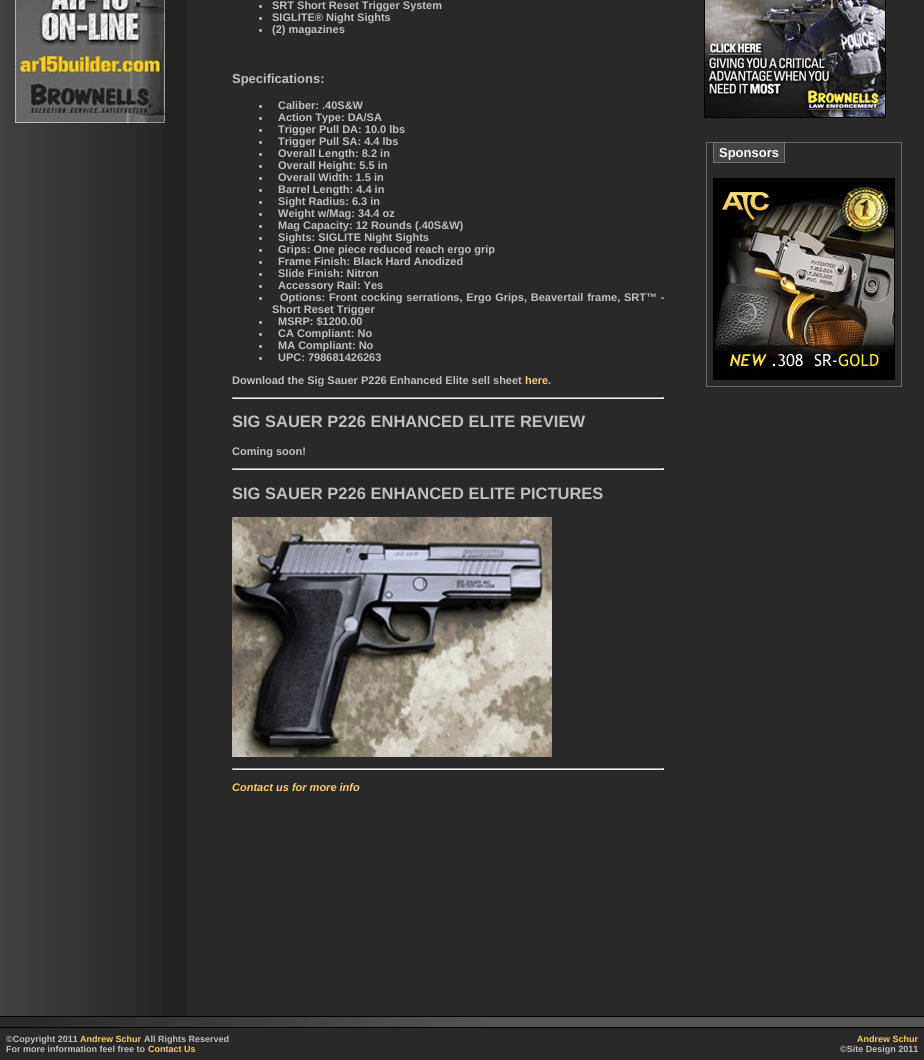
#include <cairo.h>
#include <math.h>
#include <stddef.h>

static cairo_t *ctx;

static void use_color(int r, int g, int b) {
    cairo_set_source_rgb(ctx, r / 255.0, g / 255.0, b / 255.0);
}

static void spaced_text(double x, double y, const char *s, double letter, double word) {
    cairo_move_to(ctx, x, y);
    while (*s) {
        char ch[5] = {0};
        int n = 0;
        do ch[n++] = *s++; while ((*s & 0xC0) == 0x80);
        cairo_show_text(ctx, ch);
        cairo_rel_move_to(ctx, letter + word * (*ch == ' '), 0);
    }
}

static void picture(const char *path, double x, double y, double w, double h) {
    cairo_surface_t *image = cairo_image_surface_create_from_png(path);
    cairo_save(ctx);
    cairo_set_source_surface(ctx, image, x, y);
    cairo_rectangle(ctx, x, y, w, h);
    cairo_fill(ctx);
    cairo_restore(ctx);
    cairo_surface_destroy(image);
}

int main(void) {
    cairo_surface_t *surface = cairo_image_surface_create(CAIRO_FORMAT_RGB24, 924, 1060);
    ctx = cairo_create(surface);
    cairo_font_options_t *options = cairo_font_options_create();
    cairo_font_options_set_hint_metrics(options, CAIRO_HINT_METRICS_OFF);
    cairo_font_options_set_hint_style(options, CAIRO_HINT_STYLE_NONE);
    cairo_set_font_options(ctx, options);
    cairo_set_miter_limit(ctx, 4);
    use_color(41, 41, 41);
    cairo_paint(ctx);
    use_color(34, 34, 34);
    cairo_rectangle(ctx, 162, 0, 25, 1016);
    cairo_fill(ctx);
    picture("img1.png", 0, 0, 162, 1016);
    picture("img2.png", 15, 0, 150, 123);
    use_color(192, 192, 192);
    cairo_arc(ctx, 260.5, 6.5, 1.5, 0, 2 * M_PI);
    cairo_fill(ctx);
    cairo_select_font_face(ctx, "Liberation Sans", CAIRO_FONT_SLANT_NORMAL, CAIRO_FONT_WEIGHT_BOLD);
    cairo_set_font_size(ctx, 11);
    cairo_move_to(ctx, 272, 9);
    cairo_show_text(ctx, "SRT Short Reset Trigger System");
    cairo_new_path(ctx);
    cairo_arc(ctx, 260.5, 18.5, 1.5, 0, 2 * M_PI);
    cairo_fill(ctx);
    cairo_move_to(ctx, 272, 21);
    cairo_show_text(ctx, "SIGLITE® Night Sights");
    cairo_new_path(ctx);
    cairo_arc(ctx, 260.5, 30.5, 1.5, 0, 2 * M_PI);
    cairo_fill(ctx);
    cairo_move_to(ctx, 272, 33);
    cairo_show_text(ctx, "(2) magazines");
    cairo_set_font_size(ctx, 13);
    cairo_move_to(ctx, 232, 83);
    cairo_show_text(ctx, "Specifications:");
    cairo_new_path(ctx);
    cairo_arc(ctx, 260.5, 106.5, 1.5, 0, 2 * M_PI);
    cairo_fill(ctx);
    cairo_set_font_size(ctx, 11);
    cairo_move_to(ctx, 278, 109);
    cairo_show_text(ctx, "Caliber: .40S&W");
    cairo_new_path(ctx);
    cairo_arc(ctx, 260.5, 118.5, 1.5, 0, 2 * M_PI);
    cairo_fill(ctx);
    cairo_move_to(ctx, 278, 121);
    cairo_show_text(ctx, "Action Type: DA/SA");
    cairo_new_path(ctx);
    cairo_arc(ctx, 260.5, 130.5, 1.5, 0, 2 * M_PI);
    cairo_fill(ctx);
    cairo_move_to(ctx, 278, 133);
    cairo_show_text(ctx, "Trigger Pull DA: 10.0 lbs");
    cairo_new_path(ctx);
    cairo_arc(ctx, 260.5, 142.5, 1.5, 0, 2 * M_PI);
    cairo_fill(ctx);
    cairo_move_to(ctx, 278, 145);
    cairo_show_text(ctx, "Trigger Pull SA: 4.4 lbs");
    cairo_new_path(ctx);
    cairo_arc(ctx, 260.5, 154.5, 1.5, 0, 2 * M_PI);
    cairo_fill(ctx);
    cairo_move_to(ctx, 278, 157);
    cairo_show_text(ctx, "Overall Length: 8.2 in");
    cairo_new_path(ctx);
    cairo_arc(ctx, 260.5, 166.5, 1.5, 0, 2 * M_PI);
    cairo_fill(ctx);
    cairo_move_to(ctx, 278, 169);
    cairo_show_text(ctx, "Overall Height: 5.5 in");
    cairo_new_path(ctx);
    cairo_arc(ctx, 260.5, 178.5, 1.5, 0, 2 * M_PI);
    cairo_fill(ctx);
    cairo_move_to(ctx, 278, 181);
    cairo_show_text(ctx, "Overall Width: 1.5 in");
    cairo_new_path(ctx);
    cairo_arc(ctx, 260.5, 190.5, 1.5, 0, 2 * M_PI);
    cairo_fill(ctx);
    cairo_move_to(ctx, 278, 193);
    cairo_show_text(ctx, "Barrel Length: 4.4 in");
    cairo_new_path(ctx);
    cairo_arc(ctx, 260.5, 202.5, 1.5, 0, 2 * M_PI);
    cairo_fill(ctx);
    cairo_move_to(ctx, 278, 205);
    cairo_show_text(ctx, "Sight Radius: 6.3 in");
    cairo_new_path(ctx);
    cairo_arc(ctx, 260.5, 214.5, 1.5, 0, 2 * M_PI);
    cairo_fill(ctx);
    cairo_move_to(ctx, 278, 217);
    cairo_show_text(ctx, "Weight w/Mag: 34.4 oz");
    cairo_new_path(ctx);
    cairo_arc(ctx, 260.5, 226.5, 1.5, 0, 2 * M_PI);
    cairo_fill(ctx);
    cairo_move_to(ctx, 278, 229);
    cairo_show_text(ctx, "Mag Capacity: 12 Rounds (.40S&W)");
    cairo_new_path(ctx);
    cairo_arc(ctx, 260.5, 238.5, 1.5, 0, 2 * M_PI);
    cairo_fill(ctx);
    cairo_move_to(ctx, 278, 241);
    cairo_show_text(ctx, "Sights: SIGLITE Night Sights");
    cairo_new_path(ctx);
    cairo_arc(ctx, 260.5, 250.5, 1.5, 0, 2 * M_PI);
    cairo_fill(ctx);
    cairo_move_to(ctx, 278, 253);
    cairo_show_text(ctx, "Grips: One piece reduced reach ergo grip");
    cairo_new_path(ctx);
    cairo_arc(ctx, 260.5, 262.5, 1.5, 0, 2 * M_PI);
    cairo_fill(ctx);
    cairo_move_to(ctx, 278, 265);
    cairo_show_text(ctx, "Frame Finish: Black Hard Anodized");
    cairo_new_path(ctx);
    cairo_arc(ctx, 260.5, 274.5, 1.5, 0, 2 * M_PI);
    cairo_fill(ctx);
    cairo_move_to(ctx, 278, 277);
    cairo_show_text(ctx, "Slide Finish: Nitron");
    cairo_new_path(ctx);
    cairo_arc(ctx, 260.5, 286.5, 1.5, 0, 2 * M_PI);
    cairo_fill(ctx);
    cairo_move_to(ctx, 278, 289);
    cairo_show_text(ctx, "Accessory Rail: Yes");
    cairo_new_path(ctx);
    cairo_arc(ctx, 260.5, 298.5, 1.5, 0, 2 * M_PI);
    cairo_fill(ctx);
    spaced_text(280, 301, "Options: Front cocking serrations, Ergo Grips, Beavertail frame, SRT™ -", 0, 0.75);
    cairo_move_to(ctx, 272, 313);
    cairo_show_text(ctx, "Short Reset Trigger");
    cairo_new_path(ctx);
    cairo_arc(ctx, 260.5, 322.5, 1.5, 0, 2 * M_PI);
    cairo_fill(ctx);
    cairo_move_to(ctx, 278, 325);
    cairo_show_text(ctx, "MSRP: $1200.00");
    cairo_new_path(ctx);
    cairo_arc(ctx, 260.5, 334.5, 1.5, 0, 2 * M_PI);
    cairo_fill(ctx);
    cairo_move_to(ctx, 278, 337);
    cairo_show_text(ctx, "CA Compliant: No");
    cairo_new_path(ctx);
    cairo_arc(ctx, 260.5, 346.5, 1.5, 0, 2 * M_PI);
    cairo_fill(ctx);
    cairo_move_to(ctx, 278, 349);
    cairo_show_text(ctx, "MA Compliant: No");
    cairo_new_path(ctx);
    cairo_arc(ctx, 260.5, 358.5, 1.5, 0, 2 * M_PI);
    cairo_fill(ctx);
    cairo_move_to(ctx, 278, 361);
    cairo_show_text(ctx, "UPC: 798681426263");
    cairo_move_to(ctx, 232, 384);
    cairo_show_text(ctx, "Download the Sig Sauer P226 Enhanced Elite sell sheet");
    use_color(255, 204, 102);
    cairo_move_to(ctx, 525, 384);
    cairo_show_text(ctx, "here");
    use_color(192, 192, 192);
    cairo_move_to(ctx, 548, 384);
    cairo_show_text(ctx, ".");
    use_color(159, 159, 159);
    cairo_rectangle(ctx, 232, 397, 432, 1);
    cairo_fill(ctx);
    use_color(238, 238, 238);
    cairo_rectangle(ctx, 663, 397, 1, 2);
    cairo_fill(ctx);
    cairo_rectangle(ctx, 232, 398, 432, 1);
    cairo_fill(ctx);
    use_color(159, 159, 159);
    cairo_rectangle(ctx, 232, 397, 1, 2);
    cairo_fill(ctx);
    cairo_set_font_size(ctx, 16.5);
    use_color(192, 192, 192);
    cairo_move_to(ctx, 232, 427);
    cairo_show_text(ctx, "SIG SAUER P226 ENHANCED ELITE REVIEW");
    cairo_set_font_size(ctx, 11);
    cairo_move_to(ctx, 232, 455);
    cairo_show_text(ctx, "Coming soon!");
    use_color(159, 159, 159);
    cairo_rectangle(ctx, 232, 468, 432, 1);
    cairo_fill(ctx);
    use_color(238, 238, 238);
    cairo_rectangle(ctx, 663, 468, 1, 2);
    cairo_fill(ctx);
    cairo_rectangle(ctx, 232, 469, 432, 1);
    cairo_fill(ctx);
    use_color(159, 159, 159);
    cairo_rectangle(ctx, 232, 468, 1, 2);
    cairo_fill(ctx);
    cairo_set_font_size(ctx, 16.5);
    use_color(192, 192, 192);
    cairo_move_to(ctx, 232, 499);
    cairo_show_text(ctx, "SIG SAUER P226 ENHANCED ELITE PICTURES");
    picture("img3.png", 232, 517, 320, 240);
    use_color(159, 159, 159);
    cairo_rectangle(ctx, 232, 768, 432, 1);
    cairo_fill(ctx);
    use_color(238, 238, 238);
    cairo_rectangle(ctx, 663, 768, 1, 2);
    cairo_fill(ctx);
    cairo_rectangle(ctx, 232, 769, 432, 1);
    cairo_fill(ctx);
    use_color(159, 159, 159);
    cairo_rectangle(ctx, 232, 768, 1, 2);
    cairo_fill(ctx);
    cairo_select_font_face(ctx, "Liberation Sans", CAIRO_FONT_SLANT_ITALIC, CAIRO_FONT_WEIGHT_BOLD);
    cairo_set_font_size(ctx, 11);
    use_color(255, 204, 102);
    cairo_move_to(ctx, 232, 791);
    cairo_show_text(ctx, "Contact us for more info");
    cairo_rectangle(ctx, 704.5, -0.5, 181, 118);
    use_color(0, 0, 0);
    cairo_set_line_width(ctx, 1);
    cairo_stroke(ctx);
    picture("img4.png", 705, 0, 180, 117);
    cairo_rectangle(ctx, 706.5, 142.5, 195, 244);
    use_color(102, 102, 102);
    cairo_stroke(ctx);
    use_color(68, 68, 68);
    cairo_rectangle(ctx, 713.5, 142.5, 71, 20);
    cairo_fill_preserve(ctx);
    use_color(119, 119, 119);
    cairo_stroke(ctx);
    cairo_select_font_face(ctx, "Liberation Sans", CAIRO_FONT_SLANT_NORMAL, CAIRO_FONT_WEIGHT_BOLD);
    cairo_set_font_size(ctx, 13);
    use_color(255, 255, 255);
    cairo_move_to(ctx, 719, 157);
    cairo_show_text(ctx, "Sponsors");
    cairo_rectangle(ctx, 713.5, 178.5, 181, 201);
    use_color(0, 0, 0);
    cairo_stroke(ctx);
    picture("img5.png", 714, 179, 180, 200);
    picture("img6.png", 0, 1017, 924, 10);
    cairo_rectangle(ctx, 0, 1016, 924, 1);
    cairo_fill(ctx);
    cairo_rectangle(ctx, 0, 1027, 924, 1);
    cairo_fill(ctx);
    cairo_set_font_size(ctx, 9);
    use_color(192, 192, 192);
    cairo_move_to(ctx, 6, 1042);
    cairo_show_text(ctx, "©Copyright 2011");
    use_color(255, 204, 102);
    cairo_move_to(ctx, 80, 1042);
    cairo_show_text(ctx, "Andrew Schur");
    use_color(192, 192, 192);
    cairo_move_to(ctx, 144, 1042);
    cairo_show_text(ctx, "All Rights Reserved");
    cairo_move_to(ctx, 6, 1052);
    cairo_show_text(ctx, "For more information feel free to");
    use_color(255, 204, 102);
    cairo_move_to(ctx, 148, 1052);
    cairo_show_text(ctx, "Contact Us");
    cairo_move_to(ctx, 857, 1042);
    cairo_show_text(ctx, "Andrew Schur");
    use_color(192, 192, 192);
    cairo_move_to(ctx, 840, 1052);
    cairo_show_text(ctx, "©Site Design 2011");
    cairo_surface_write_to_png(surface, "result.png");
    cairo_font_options_destroy(options);
    cairo_destroy(ctx);
    cairo_surface_destroy(surface);
    return 0;
}
